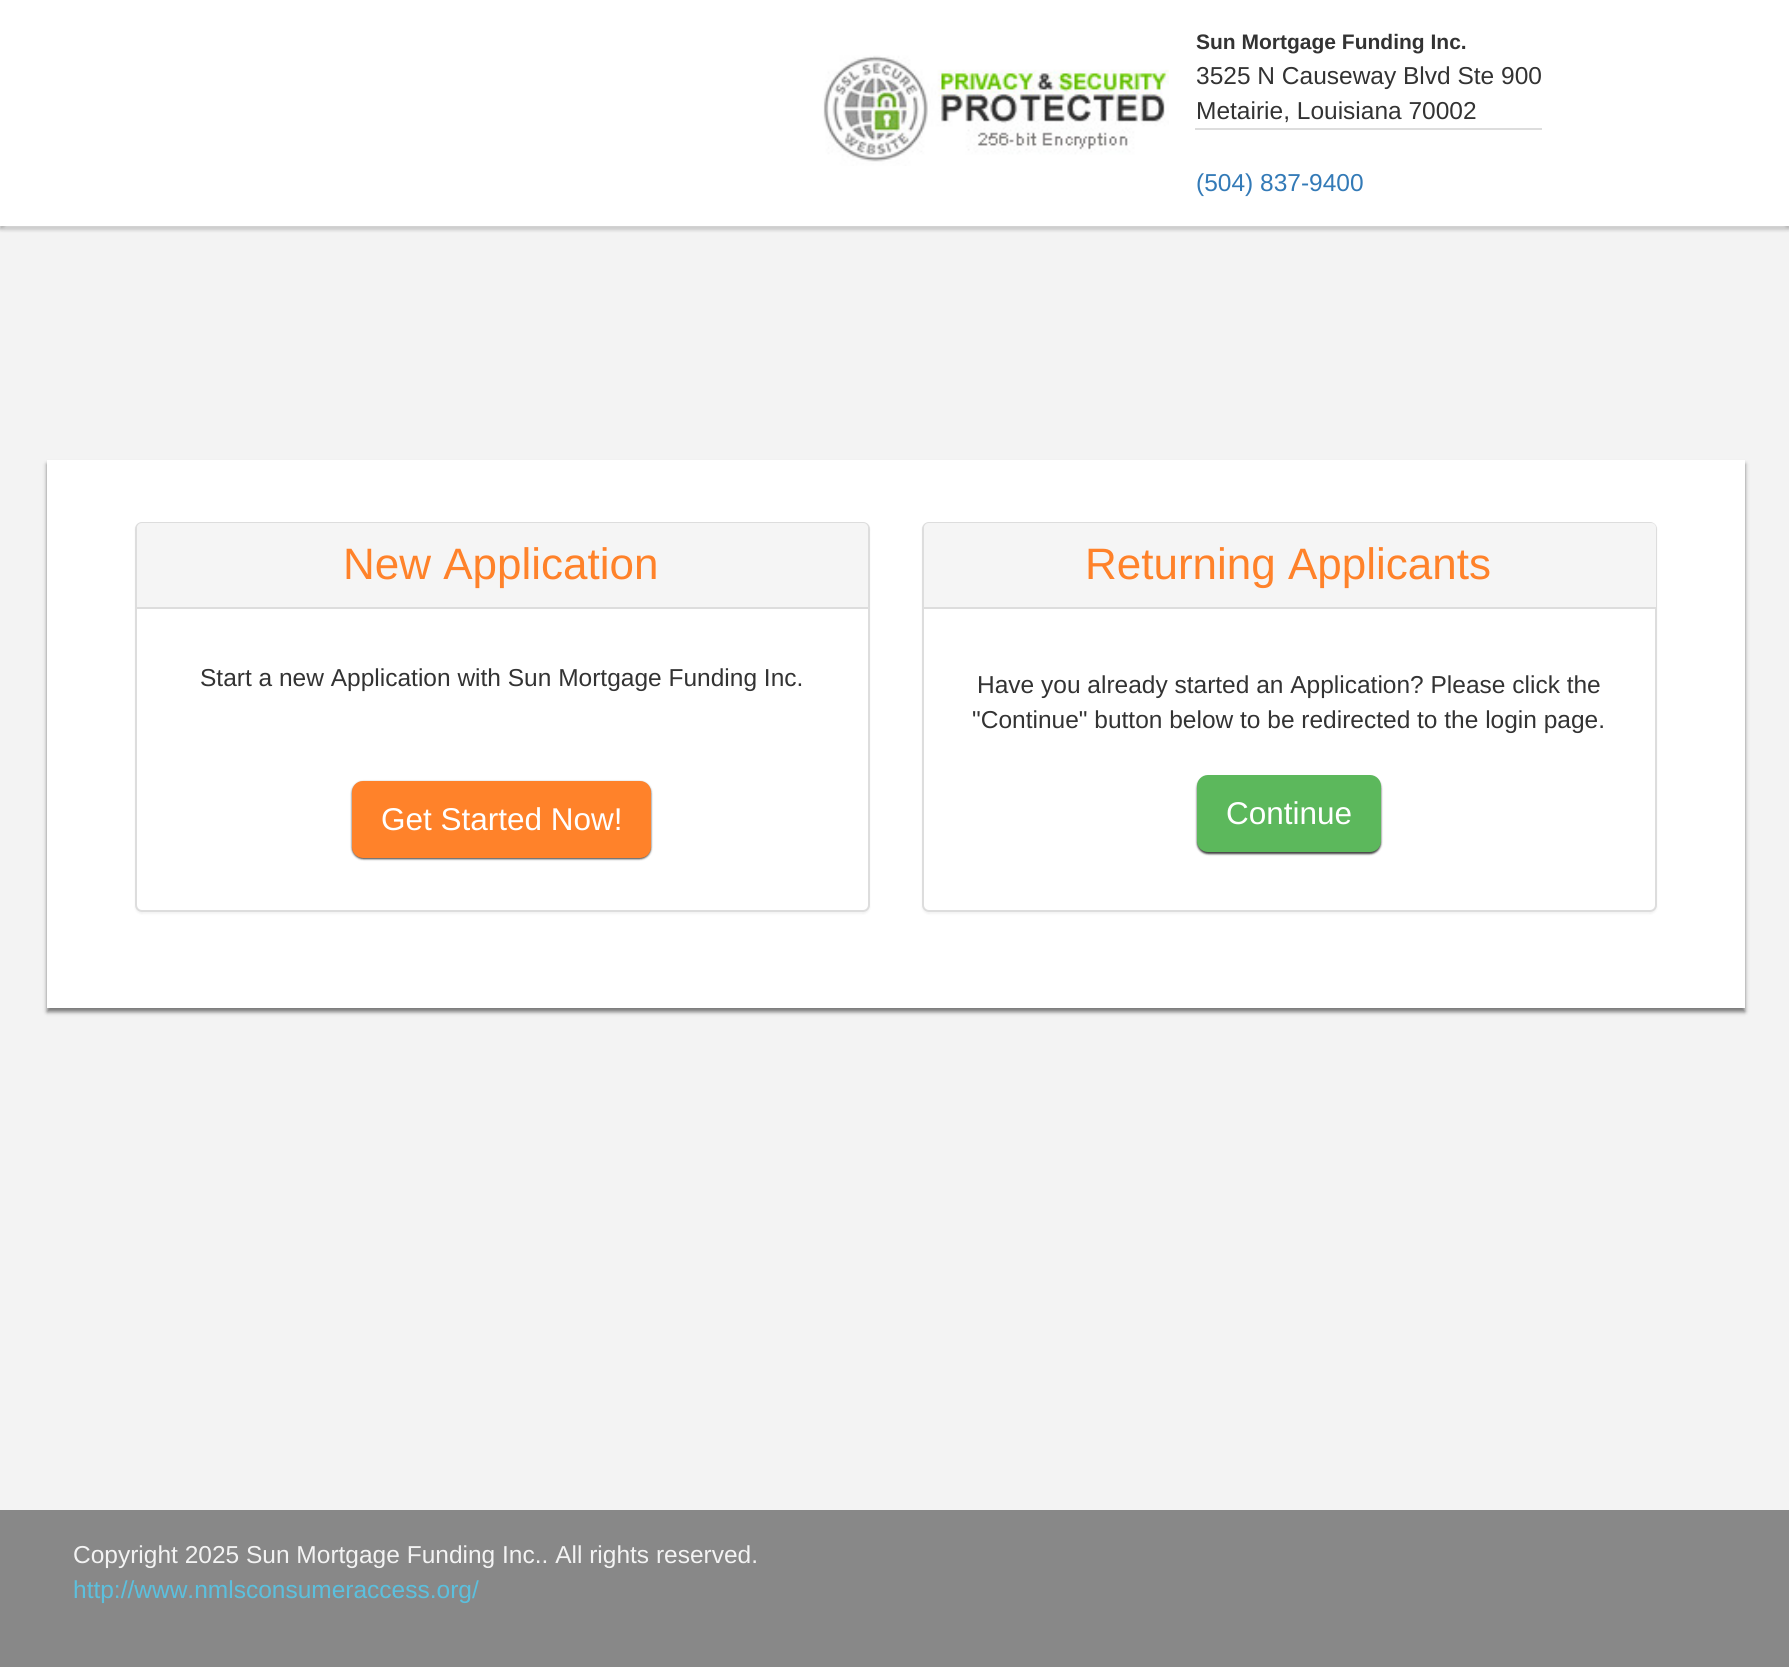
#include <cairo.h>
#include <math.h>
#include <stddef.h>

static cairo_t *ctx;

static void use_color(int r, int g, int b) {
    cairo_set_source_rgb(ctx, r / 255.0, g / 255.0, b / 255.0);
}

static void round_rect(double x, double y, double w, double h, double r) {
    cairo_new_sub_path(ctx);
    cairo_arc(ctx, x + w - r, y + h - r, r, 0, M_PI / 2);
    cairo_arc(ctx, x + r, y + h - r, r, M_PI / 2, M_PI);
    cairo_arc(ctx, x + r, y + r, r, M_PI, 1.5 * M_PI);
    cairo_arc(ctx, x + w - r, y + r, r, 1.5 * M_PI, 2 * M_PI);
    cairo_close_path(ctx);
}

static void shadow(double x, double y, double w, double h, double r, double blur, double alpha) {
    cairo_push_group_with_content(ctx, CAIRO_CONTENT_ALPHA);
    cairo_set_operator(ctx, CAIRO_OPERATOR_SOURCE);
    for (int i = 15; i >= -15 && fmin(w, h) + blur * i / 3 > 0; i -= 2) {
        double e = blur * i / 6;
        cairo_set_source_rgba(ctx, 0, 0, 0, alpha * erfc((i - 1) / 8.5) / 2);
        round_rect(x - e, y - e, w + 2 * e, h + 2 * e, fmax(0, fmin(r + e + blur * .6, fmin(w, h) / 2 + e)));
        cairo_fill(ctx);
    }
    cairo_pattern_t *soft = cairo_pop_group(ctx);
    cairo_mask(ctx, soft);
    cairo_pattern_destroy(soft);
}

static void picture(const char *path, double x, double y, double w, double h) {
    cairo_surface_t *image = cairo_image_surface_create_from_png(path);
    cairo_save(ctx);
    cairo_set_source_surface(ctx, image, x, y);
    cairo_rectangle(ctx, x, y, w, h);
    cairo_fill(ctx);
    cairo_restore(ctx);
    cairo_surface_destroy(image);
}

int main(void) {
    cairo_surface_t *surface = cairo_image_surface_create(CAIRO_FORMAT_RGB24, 1789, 1667);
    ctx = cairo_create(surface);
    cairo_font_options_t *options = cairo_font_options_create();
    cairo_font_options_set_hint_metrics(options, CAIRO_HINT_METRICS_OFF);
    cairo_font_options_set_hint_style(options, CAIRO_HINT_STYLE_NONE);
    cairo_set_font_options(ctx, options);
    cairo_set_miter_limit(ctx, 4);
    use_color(243, 243, 243);
    cairo_paint(ctx);
    use_color(0, 0, 0);
    shadow(0, 4, 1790, 225, 0, 2, 0.3);
    use_color(255, 255, 255);
    cairo_rectangle(ctx, 0, 0, 1789, 226);
    cairo_fill(ctx);
    cairo_save(ctx);
    cairo_set_fill_rule(ctx, CAIRO_FILL_RULE_EVEN_ODD);
    cairo_new_path(ctx);
    cairo_move_to(ctx, 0, 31);
    cairo_line_to(ctx, 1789, 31);
    cairo_line_to(ctx, 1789, 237);
    cairo_line_to(ctx, 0, 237);
    cairo_close_path(ctx);
    cairo_move_to(ctx, 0, 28);
    cairo_line_to(ctx, 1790, 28);
    cairo_line_to(ctx, 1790, 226);
    cairo_line_to(ctx, 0, 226);
    cairo_close_path(ctx);
    cairo_clip(ctx);
    use_color(221, 221, 221);
    shadow(5, 40, 1780, 188, 0, 2.5, 1);
    cairo_restore(ctx);
    picture("img1.png", 823, 55, 346, 111);
    cairo_select_font_face(ctx, "Liberation Sans", CAIRO_FONT_SLANT_NORMAL, CAIRO_FONT_WEIGHT_BOLD);
    cairo_set_font_size(ctx, 21);
    use_color(51, 51, 51);
    cairo_move_to(ctx, 1196, 49);
    cairo_show_text(ctx, "Sun Mortgage Funding Inc.");
    use_color(221, 221, 221);
    cairo_rectangle(ctx, 1195, 128, 347, 2);
    cairo_fill(ctx);
    cairo_select_font_face(ctx, "Liberation Sans", CAIRO_FONT_SLANT_NORMAL, CAIRO_FONT_WEIGHT_NORMAL);
    cairo_set_font_size(ctx, 24.5);
    use_color(51, 51, 51);
    cairo_move_to(ctx, 1196, 84);
    cairo_show_text(ctx, "3525 N Causeway Blvd Ste 900");
    cairo_move_to(ctx, 1196, 119);
    cairo_show_text(ctx, "Metairie, Louisiana 70002");
    use_color(51, 122, 183);
    cairo_move_to(ctx, 1196, 191);
    cairo_show_text(ctx, "(504) 837-9400");
    use_color(0, 0, 0);
    shadow(47, 464, 1698, 548, 0, 2, 0.5);
    use_color(255, 255, 255);
    cairo_rectangle(ctx, 47, 460, 1698, 548);
    cairo_fill(ctx);
    use_color(0, 0, 0);
    shadow(135, 523, 735, 391, 7, 1, 0.05);
    use_color(255, 255, 255);
    round_rect(136, 523, 733, 388, 6);
    cairo_fill_preserve(ctx);
    use_color(221, 221, 221);
    cairo_stroke(ctx);
    use_color(245, 245, 245);
    cairo_new_path(ctx);
    cairo_move_to(ctx, 142, 523);
    cairo_line_to(ctx, 863, 523);
    cairo_curve_to(ctx, 866, 523, 868, 525, 868, 528);
    cairo_line_to(ctx, 868, 609);
    cairo_line_to(ctx, 137, 609);
    cairo_line_to(ctx, 137, 528);
    cairo_curve_to(ctx, 137, 525, 139, 523, 142, 523);
    cairo_close_path(ctx);
    cairo_fill(ctx);
    use_color(221, 221, 221);
    cairo_rectangle(ctx, 137, 607, 731, 2);
    cairo_fill(ctx);
    cairo_set_font_size(ctx, 44);
    use_color(255, 130, 42);
    cairo_move_to(ctx, 343, 579);
    cairo_show_text(ctx, "New Application");
    cairo_set_font_size(ctx, 24.5);
    use_color(51, 51, 51);
    cairo_move_to(ctx, 200, 686);
    cairo_show_text(ctx, "Start a new Application with Sun Mortgage Funding Inc.");
    use_color(0, 0, 0);
    shadow(352, 782, 299, 77, 11, 1, 0.75);
    use_color(255, 130, 42);
    round_rect(352, 781, 299, 77, 11);
    cairo_fill(ctx);
    cairo_set_font_size(ctx, 31.5);
    use_color(255, 255, 255);
    cairo_move_to(ctx, 381, 830);
    cairo_show_text(ctx, "Get Started Now!");
    use_color(0, 0, 0);
    shadow(922, 523, 735, 391, 7, 1, 0.05);
    use_color(255, 255, 255);
    round_rect(923, 523, 733, 388, 6);
    cairo_fill_preserve(ctx);
    use_color(221, 221, 221);
    cairo_stroke(ctx);
    use_color(245, 245, 245);
    cairo_new_path(ctx);
    cairo_move_to(ctx, 929, 523);
    cairo_line_to(ctx, 1651, 523);
    cairo_curve_to(ctx, 1654, 523, 1656, 525, 1656, 528);
    cairo_line_to(ctx, 1656, 609);
    cairo_line_to(ctx, 924, 609);
    cairo_line_to(ctx, 924, 528);
    cairo_curve_to(ctx, 924, 525, 926, 523, 929, 523);
    cairo_close_path(ctx);
    cairo_fill(ctx);
    use_color(221, 221, 221);
    cairo_rectangle(ctx, 924, 607, 732, 2);
    cairo_fill(ctx);
    cairo_set_font_size(ctx, 44);
    use_color(255, 130, 42);
    cairo_move_to(ctx, 1085, 579);
    cairo_show_text(ctx, "Returning Applicants");
    cairo_set_font_size(ctx, 24.5);
    use_color(51, 51, 51);
    cairo_move_to(ctx, 977, 693);
    cairo_show_text(ctx, "Have you already started an Application? Please click the");
    cairo_move_to(ctx, 972, 728);
    cairo_show_text(ctx, "\"Continue\" button below to be redirected to the login page.");
    use_color(0, 0, 0);
    shadow(1197, 777, 184, 77, 11, 1, 0.75);
    use_color(92, 184, 92);
    round_rect(1197, 775, 184, 77, 11);
    cairo_fill(ctx);
    cairo_set_font_size(ctx, 31.5);
    use_color(255, 255, 255);
    cairo_move_to(ctx, 1226, 824);
    cairo_show_text(ctx, "Continue");
    use_color(136, 136, 136);
    cairo_rectangle(ctx, 0, 1510, 1789, 157);
    cairo_fill(ctx);
    cairo_set_font_size(ctx, 24.5);
    use_color(243, 243, 243);
    cairo_move_to(ctx, 73, 1563);
    cairo_show_text(ctx, "Copyright 2025 Sun Mortgage Funding Inc.. All rights reserved.");
    use_color(91, 192, 222);
    cairo_move_to(ctx, 73, 1598);
    cairo_show_text(ctx, "http://www.nmlsconsumeraccess.org/");
    cairo_surface_write_to_png(surface, "result.png");
    cairo_font_options_destroy(options);
    cairo_destroy(ctx);
    cairo_surface_destroy(surface);
    return 0;
}
